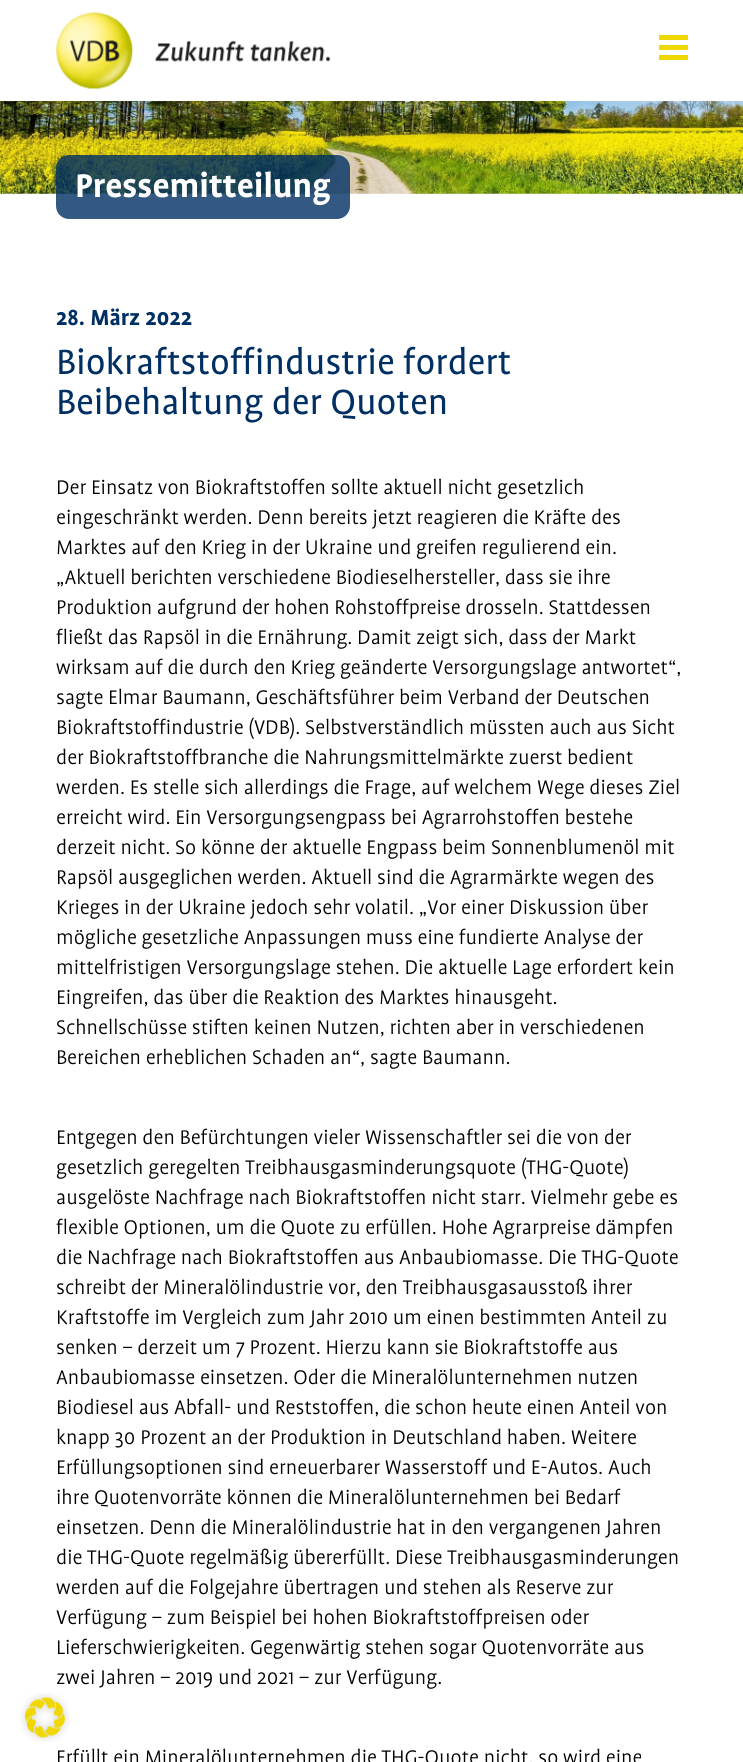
#include <cairo.h>
#include <math.h>
#include <stddef.h>

static cairo_t *ctx;

static void use_color(int r, int g, int b) {
    cairo_set_source_rgb(ctx, r / 255.0, g / 255.0, b / 255.0);
}

static void round_rect(double x, double y, double w, double h, double r) {
    cairo_new_sub_path(ctx);
    cairo_arc(ctx, x + w - r, y + h - r, r, 0, M_PI / 2);
    cairo_arc(ctx, x + r, y + h - r, r, M_PI / 2, M_PI);
    cairo_arc(ctx, x + r, y + r, r, M_PI, 1.5 * M_PI);
    cairo_arc(ctx, x + w - r, y + r, r, 1.5 * M_PI, 2 * M_PI);
    cairo_close_path(ctx);
}

static void picture(const char *path, double x, double y, double w, double h) {
    cairo_surface_t *image = cairo_image_surface_create_from_png(path);
    cairo_save(ctx);
    cairo_set_source_surface(ctx, image, x, y);
    cairo_rectangle(ctx, x, y, w, h);
    cairo_fill(ctx);
    cairo_restore(ctx);
    cairo_surface_destroy(image);
}

int main(void) {
    cairo_surface_t *surface = cairo_image_surface_create(CAIRO_FORMAT_RGB24, 743, 1762);
    ctx = cairo_create(surface);
    cairo_font_options_t *options = cairo_font_options_create();
    cairo_font_options_set_hint_metrics(options, CAIRO_HINT_METRICS_OFF);
    cairo_font_options_set_hint_style(options, CAIRO_HINT_STYLE_NONE);
    cairo_set_font_options(ctx, options);
    cairo_set_miter_limit(ctx, 4);
    use_color(255, 255, 255);
    cairo_paint(ctx);
    picture("img1.png", 20, 1693, 50, 49);
    picture("img2.png", 56, 12, 275, 77);
    use_color(240, 215, 0);
    cairo_rectangle(ctx, 659, 35, 29, 5);
    cairo_fill(ctx);
    cairo_rectangle(ctx, 659, 45, 29, 5);
    cairo_fill(ctx);
    cairo_rectangle(ctx, 659, 55, 29, 5);
    cairo_fill(ctx);
    picture("img3.png", 0, 101, 743, 93);
    cairo_set_source_rgba(ctx, 0, 0.188, 0.388, 0.8);
    round_rect(56, 155, 294, 64, 13);
    cairo_fill(ctx);
    cairo_select_font_face(ctx, "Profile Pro", CAIRO_FONT_SLANT_NORMAL, CAIRO_FONT_WEIGHT_BOLD);
    cairo_set_font_size(ctx, 37.5);
    use_color(255, 255, 255);
    cairo_move_to(ctx, 75, 197);
    cairo_show_text(ctx, "Pressemitteilung");
    cairo_set_font_size(ctx, 25);
    use_color(0, 48, 99);
    cairo_move_to(ctx, 56, 325);
    cairo_show_text(ctx, "28. März 2022");
    cairo_select_font_face(ctx, "Profile Pro", CAIRO_FONT_SLANT_NORMAL, CAIRO_FONT_WEIGHT_NORMAL);
    cairo_set_font_size(ctx, 40);
    cairo_move_to(ctx, 56, 374);
    cairo_show_text(ctx, "Biokraftstoffindustrie fordert");
    cairo_move_to(ctx, 56, 414);
    cairo_show_text(ctx, "Beibehaltung der Quoten");
    cairo_select_font_face(ctx, "Profile Pro Light", CAIRO_FONT_SLANT_NORMAL, CAIRO_FONT_WEIGHT_NORMAL);
    cairo_set_font_size(ctx, 22.5);
    use_color(0, 0, 0);
    cairo_move_to(ctx, 56, 494);
    cairo_show_text(ctx, "Der Einsatz von Biokraftstoffen sollte aktuell nicht gesetzlich");
    cairo_move_to(ctx, 56, 524);
    cairo_show_text(ctx, "eingeschränkt werden. Denn bereits jetzt reagieren die Kräfte des");
    cairo_move_to(ctx, 56, 554);
    cairo_show_text(ctx, "Marktes auf den Krieg in der Ukraine und greifen regulierend ein.");
    cairo_move_to(ctx, 56, 584);
    cairo_show_text(ctx, "„Aktuell berichten verschiedene Biodieselhersteller, dass sie ihre");
    cairo_move_to(ctx, 56, 614);
    cairo_show_text(ctx, "Produktion aufgrund der hohen Rohstoffpreise drosseln. Stattdessen");
    cairo_move_to(ctx, 56, 644);
    cairo_show_text(ctx, "fließt das Rapsöl in die Ernährung. Damit zeigt sich, dass der Markt");
    cairo_move_to(ctx, 56, 674);
    cairo_show_text(ctx, "wirksam auf die durch den Krieg geänderte Versorgungslage antwortet“,");
    cairo_move_to(ctx, 56, 704);
    cairo_show_text(ctx, "sagte Elmar Baumann, Geschäftsführer beim Verband der Deutschen");
    cairo_move_to(ctx, 56, 734);
    cairo_show_text(ctx, "Biokraftstoffindustrie (VDB). Selbstverständlich müssten auch aus Sicht");
    cairo_move_to(ctx, 56, 764);
    cairo_show_text(ctx, "der Biokraftstoffbranche die Nahrungsmittelmärkte zuerst bedient");
    cairo_move_to(ctx, 56, 794);
    cairo_show_text(ctx, "werden. Es stelle sich allerdings die Frage, auf welchem Wege dieses Ziel");
    cairo_move_to(ctx, 56, 824);
    cairo_show_text(ctx, "erreicht wird. Ein Versorgungsengpass bei Agrarrohstoffen bestehe");
    cairo_move_to(ctx, 56, 854);
    cairo_show_text(ctx, "derzeit nicht. So könne der aktuelle Engpass beim Sonnenblumenöl mit");
    cairo_move_to(ctx, 56, 884);
    cairo_show_text(ctx, "Rapsöl ausgeglichen werden. Aktuell sind die Agrarmärkte wegen des");
    cairo_move_to(ctx, 56, 914);
    cairo_show_text(ctx, "Krieges in der Ukraine jedoch sehr volatil. „Vor einer Diskussion über");
    cairo_move_to(ctx, 56, 944);
    cairo_show_text(ctx, "mögliche gesetzliche Anpassungen muss eine fundierte Analyse der");
    cairo_move_to(ctx, 56, 974);
    cairo_show_text(ctx, "mittelfristigen Versorgungslage stehen. Die aktuelle Lage erfordert kein");
    cairo_move_to(ctx, 56, 1004);
    cairo_show_text(ctx, "Eingreifen, das über die Reaktion des Marktes hinausgeht.");
    cairo_move_to(ctx, 56, 1034);
    cairo_show_text(ctx, "Schnellschüsse stiften keinen Nutzen, richten aber in verschiedenen");
    cairo_move_to(ctx, 56, 1064);
    cairo_show_text(ctx, "Bereichen erheblichen Schaden an“, sagte Baumann.");
    cairo_move_to(ctx, 56, 1144);
    cairo_show_text(ctx, "Entgegen den Befürchtungen vieler Wissenschaftler sei die von der");
    cairo_move_to(ctx, 56, 1174);
    cairo_show_text(ctx, "gesetzlich geregelten Treibhausgasminderungsquote (THG-Quote)");
    cairo_move_to(ctx, 56, 1204);
    cairo_show_text(ctx, "ausgelöste Nachfrage nach Biokraftstoffen nicht starr. Vielmehr gebe es");
    cairo_move_to(ctx, 56, 1234);
    cairo_show_text(ctx, "flexible Optionen, um die Quote zu erfüllen. Hohe Agrarpreise dämpfen");
    cairo_move_to(ctx, 56, 1264);
    cairo_show_text(ctx, "die Nachfrage nach Biokraftstoffen aus Anbaubiomasse. Die THG-Quote");
    cairo_move_to(ctx, 56, 1294);
    cairo_show_text(ctx, "schreibt der Mineralölindustrie vor, den Treibhausgasausstoß ihrer");
    cairo_move_to(ctx, 56, 1324);
    cairo_show_text(ctx, "Kraftstoffe im Vergleich zum Jahr 2010 um einen bestimmten Anteil zu");
    cairo_move_to(ctx, 56, 1354);
    cairo_show_text(ctx, "senken – derzeit um 7 Prozent. Hierzu kann sie Biokraftstoffe aus");
    cairo_move_to(ctx, 56, 1384);
    cairo_show_text(ctx, "Anbaubiomasse einsetzen. Oder die Mineralölunternehmen nutzen");
    cairo_move_to(ctx, 56, 1414);
    cairo_show_text(ctx, "Biodiesel aus Abfall- und Reststoffen, die schon heute einen Anteil von");
    cairo_move_to(ctx, 56, 1444);
    cairo_show_text(ctx, "knapp 30 Prozent an der Produktion in Deutschland haben. Weitere");
    cairo_move_to(ctx, 56, 1474);
    cairo_show_text(ctx, "Erfüllungsoptionen sind erneuerbarer Wasserstoff und E-Autos. Auch");
    cairo_move_to(ctx, 56, 1504);
    cairo_show_text(ctx, "ihre Quotenvorräte können die Mineralölunternehmen bei Bedarf");
    cairo_move_to(ctx, 56, 1534);
    cairo_show_text(ctx, "einsetzen. Denn die Mineralölindustrie hat in den vergangenen Jahren");
    cairo_move_to(ctx, 56, 1564);
    cairo_show_text(ctx, "die THG-Quote regelmäßig übererfüllt. Diese Treibhausgasminderungen");
    cairo_move_to(ctx, 56, 1594);
    cairo_show_text(ctx, "werden auf die Folgejahre übertragen und stehen als Reserve zur");
    cairo_move_to(ctx, 56, 1624);
    cairo_show_text(ctx, "Verfügung – zum Beispiel bei hohen Biokraftstoffpreisen oder");
    cairo_move_to(ctx, 56, 1654);
    cairo_show_text(ctx, "Lieferschwierigkeiten. Gegenwärtig stehen sogar Quotenvorräte aus");
    cairo_move_to(ctx, 56, 1684);
    cairo_show_text(ctx, "zwei Jahren – 2019 und 2021 – zur Verfügung.");
    cairo_move_to(ctx, 56, 1764);
    cairo_show_text(ctx, "Erfüllt ein Mineralölunternehmen die THG-Quote nicht, so wird eine");
    cairo_surface_write_to_png(surface, "result.png");
    cairo_font_options_destroy(options);
    cairo_destroy(ctx);
    cairo_surface_destroy(surface);
    return 0;
}
